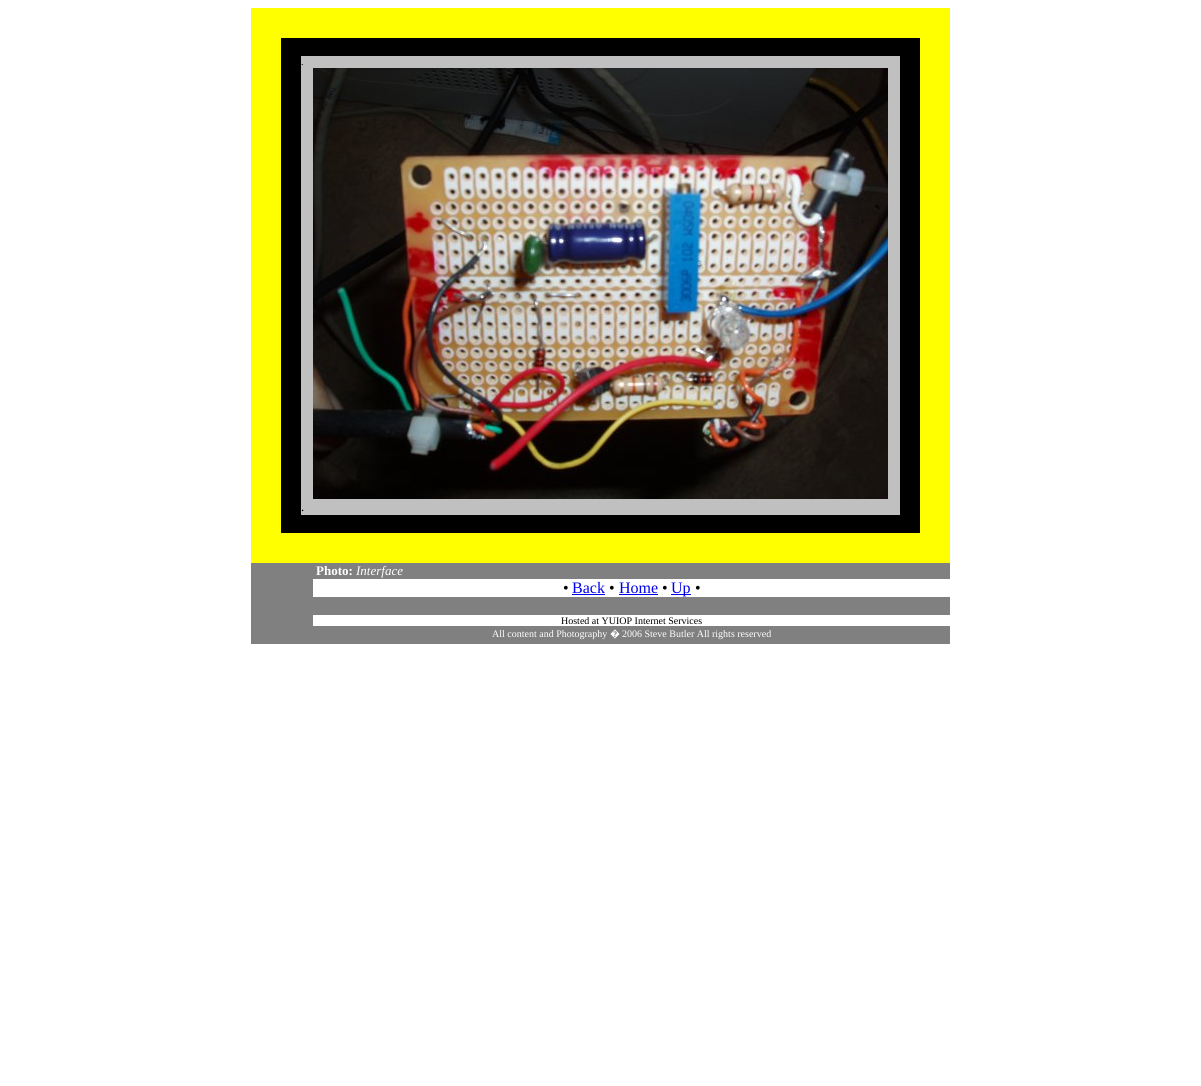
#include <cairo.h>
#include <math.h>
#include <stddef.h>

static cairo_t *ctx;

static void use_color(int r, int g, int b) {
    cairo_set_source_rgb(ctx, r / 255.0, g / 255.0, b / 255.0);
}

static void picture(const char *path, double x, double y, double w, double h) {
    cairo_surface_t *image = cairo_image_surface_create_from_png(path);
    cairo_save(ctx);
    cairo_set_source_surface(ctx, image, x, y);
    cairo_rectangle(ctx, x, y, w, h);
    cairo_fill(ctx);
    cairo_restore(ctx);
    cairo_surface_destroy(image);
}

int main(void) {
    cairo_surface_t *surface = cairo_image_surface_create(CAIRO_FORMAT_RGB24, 1201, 1086);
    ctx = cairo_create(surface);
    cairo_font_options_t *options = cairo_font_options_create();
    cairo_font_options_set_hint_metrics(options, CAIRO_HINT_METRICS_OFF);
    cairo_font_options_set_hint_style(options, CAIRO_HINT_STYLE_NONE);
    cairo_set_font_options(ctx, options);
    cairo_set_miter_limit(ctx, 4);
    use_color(255, 255, 255);
    cairo_paint(ctx);
    use_color(255, 255, 0);
    cairo_rectangle(ctx, 251, 8, 699, 30);
    cairo_fill(ctx);
    cairo_rectangle(ctx, 251, 38, 30, 495);
    cairo_fill(ctx);
    use_color(0, 0, 0);
    cairo_rectangle(ctx, 281, 38, 639, 18);
    cairo_fill(ctx);
    use_color(255, 255, 0);
    cairo_rectangle(ctx, 920, 38, 30, 495);
    cairo_fill(ctx);
    use_color(0, 0, 0);
    cairo_rectangle(ctx, 281, 56, 20, 459);
    cairo_fill(ctx);
    use_color(192, 192, 192);
    cairo_rectangle(ctx, 301, 56, 599, 12);
    cairo_fill(ctx);
    cairo_select_font_face(ctx, "Liberation Serif", CAIRO_FONT_SLANT_NORMAL, CAIRO_FONT_WEIGHT_NORMAL);
    cairo_set_font_size(ctx, 10);
    use_color(0, 0, 0);
    cairo_move_to(ctx, 301, 65);
    cairo_show_text(ctx, ".");
    cairo_rectangle(ctx, 900, 56, 20, 459);
    cairo_fill(ctx);
    use_color(192, 192, 192);
    cairo_rectangle(ctx, 301, 68, 12, 431);
    cairo_fill(ctx);
    picture("img1.png", 313, 68, 575, 431);
    cairo_rectangle(ctx, 888, 68, 12, 431);
    cairo_fill(ctx);
    cairo_rectangle(ctx, 301, 499, 599, 16);
    cairo_fill(ctx);
    cairo_set_font_size(ctx, 13);
    use_color(0, 0, 0);
    cairo_move_to(ctx, 301, 511);
    cairo_show_text(ctx, ".");
    cairo_rectangle(ctx, 281, 515, 639, 18);
    cairo_fill(ctx);
    use_color(255, 255, 0);
    cairo_rectangle(ctx, 251, 533, 699, 30);
    cairo_fill(ctx);
    use_color(128, 128, 128);
    cairo_rectangle(ctx, 251, 563, 62, 81);
    cairo_fill(ctx);
    cairo_rectangle(ctx, 313, 563, 637, 16);
    cairo_fill(ctx);
    cairo_select_font_face(ctx, "Liberation Serif", CAIRO_FONT_SLANT_NORMAL, CAIRO_FONT_WEIGHT_BOLD);
    use_color(255, 255, 255);
    cairo_move_to(ctx, 316, 575);
    cairo_show_text(ctx, "Photo:");
    cairo_select_font_face(ctx, "Liberation Serif", CAIRO_FONT_SLANT_ITALIC, CAIRO_FONT_WEIGHT_NORMAL);
    cairo_move_to(ctx, 356, 575);
    cairo_show_text(ctx, "Interface");
    cairo_select_font_face(ctx, "Liberation Serif", CAIRO_FONT_SLANT_NORMAL, CAIRO_FONT_WEIGHT_NORMAL);
    cairo_set_font_size(ctx, 16);
    use_color(0, 0, 0);
    cairo_move_to(ctx, 563, 593);
    cairo_show_text(ctx, "•");
    use_color(0, 0, 238);
    cairo_move_to(ctx, 572, 593);
    cairo_show_text(ctx, "Back");
    cairo_rectangle(ctx, 572, 594, 33, 1);
    cairo_fill(ctx);
    use_color(0, 0, 0);
    cairo_move_to(ctx, 609, 593);
    cairo_show_text(ctx, "•");
    use_color(0, 0, 238);
    cairo_move_to(ctx, 619, 593);
    cairo_show_text(ctx, "Home");
    cairo_rectangle(ctx, 619, 594, 39, 1);
    cairo_fill(ctx);
    use_color(0, 0, 0);
    cairo_move_to(ctx, 662, 593);
    cairo_show_text(ctx, "•");
    use_color(0, 0, 238);
    cairo_rectangle(ctx, 671, 594, 20, 1);
    cairo_fill(ctx);
    cairo_move_to(ctx, 671, 593);
    cairo_show_text(ctx, "Up");
    use_color(0, 0, 0);
    cairo_move_to(ctx, 695, 593);
    cairo_show_text(ctx, "•");
    use_color(128, 128, 128);
    cairo_rectangle(ctx, 313, 597, 637, 18);
    cairo_fill(ctx);
    cairo_set_font_size(ctx, 10);
    use_color(0, 0, 0);
    cairo_move_to(ctx, 561, 624);
    cairo_show_text(ctx, "Hosted at YUIOP Internet Services");
    use_color(128, 128, 128);
    cairo_rectangle(ctx, 313, 626, 637, 18);
    cairo_fill(ctx);
    use_color(255, 255, 255);
    cairo_move_to(ctx, 492, 637);
    cairo_show_text(ctx, "All content and Photography");
    cairo_select_font_face(ctx, "Noto Sans", CAIRO_FONT_SLANT_NORMAL, CAIRO_FONT_WEIGHT_NORMAL);
    cairo_move_to(ctx, 610, 637);
    cairo_show_text(ctx, "�");
    cairo_select_font_face(ctx, "Liberation Serif", CAIRO_FONT_SLANT_NORMAL, CAIRO_FONT_WEIGHT_NORMAL);
    cairo_move_to(ctx, 622, 637);
    cairo_show_text(ctx, "2006 Steve Butler All rights reserved");
    cairo_surface_write_to_png(surface, "result.png");
    cairo_font_options_destroy(options);
    cairo_destroy(ctx);
    cairo_surface_destroy(surface);
    return 0;
}
